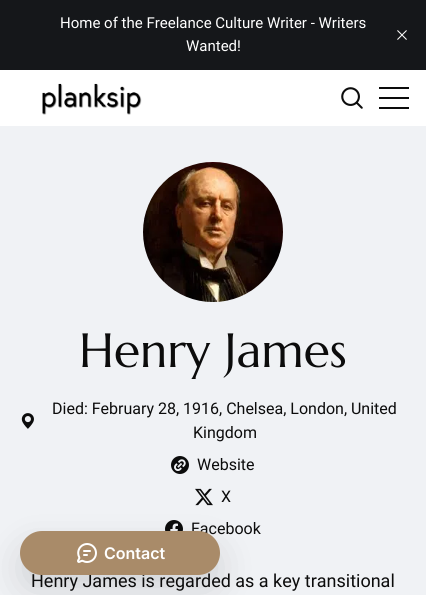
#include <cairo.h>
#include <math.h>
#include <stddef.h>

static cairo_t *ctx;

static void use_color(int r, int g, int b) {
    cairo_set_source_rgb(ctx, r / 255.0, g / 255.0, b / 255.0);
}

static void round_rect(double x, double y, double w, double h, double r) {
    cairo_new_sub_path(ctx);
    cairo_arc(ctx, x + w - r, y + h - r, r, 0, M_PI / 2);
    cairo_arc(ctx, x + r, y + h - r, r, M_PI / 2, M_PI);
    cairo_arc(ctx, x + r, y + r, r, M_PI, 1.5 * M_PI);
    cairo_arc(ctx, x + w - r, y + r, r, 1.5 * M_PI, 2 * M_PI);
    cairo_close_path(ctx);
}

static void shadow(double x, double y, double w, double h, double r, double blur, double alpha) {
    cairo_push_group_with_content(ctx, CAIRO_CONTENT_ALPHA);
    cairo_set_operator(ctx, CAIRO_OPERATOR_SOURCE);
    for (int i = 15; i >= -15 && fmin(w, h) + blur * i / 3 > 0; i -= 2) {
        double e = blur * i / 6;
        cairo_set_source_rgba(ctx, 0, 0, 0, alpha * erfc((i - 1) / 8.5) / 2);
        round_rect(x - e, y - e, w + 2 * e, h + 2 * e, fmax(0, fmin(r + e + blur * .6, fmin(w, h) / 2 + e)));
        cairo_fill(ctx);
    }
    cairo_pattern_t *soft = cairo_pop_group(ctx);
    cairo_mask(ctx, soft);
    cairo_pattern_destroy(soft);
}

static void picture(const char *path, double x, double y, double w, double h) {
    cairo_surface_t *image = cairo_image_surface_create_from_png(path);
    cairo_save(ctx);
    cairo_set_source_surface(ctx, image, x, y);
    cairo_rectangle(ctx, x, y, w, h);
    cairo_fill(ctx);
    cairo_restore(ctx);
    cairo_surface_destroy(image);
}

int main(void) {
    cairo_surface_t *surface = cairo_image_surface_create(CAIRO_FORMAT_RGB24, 426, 595);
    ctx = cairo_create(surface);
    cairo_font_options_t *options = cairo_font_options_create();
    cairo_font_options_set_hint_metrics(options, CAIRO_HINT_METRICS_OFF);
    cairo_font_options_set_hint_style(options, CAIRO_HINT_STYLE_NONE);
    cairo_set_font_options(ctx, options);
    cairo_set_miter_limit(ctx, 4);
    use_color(255, 255, 255);
    cairo_paint(ctx);
    use_color(21, 23, 26);
    cairo_rectangle(ctx, 0, 0, 426, 70);
    cairo_fill(ctx);
    cairo_select_font_face(ctx, "Roboto", CAIRO_FONT_SLANT_NORMAL, CAIRO_FONT_WEIGHT_NORMAL);
    cairo_set_font_size(ctx, 15);
    use_color(255, 255, 255);
    cairo_move_to(ctx, 60, 28);
    cairo_show_text(ctx, "Home of the Freelance Culture Writer - Writers");
    cairo_move_to(ctx, 186, 51);
    cairo_show_text(ctx, "Wanted!");
    picture("img1.png", 397, 30, 10, 10);
    picture("img2.png", 42, 83, 100, 32);
    picture("img3.png", 341, 87, 22, 22);
    use_color(12, 12, 12);
    cairo_rectangle(ctx, 379, 87, 30, 2);
    cairo_fill(ctx);
    cairo_rectangle(ctx, 379, 97, 30, 2);
    cairo_fill(ctx);
    cairo_rectangle(ctx, 379, 107, 30, 2);
    cairo_fill(ctx);
    use_color(240, 242, 245);
    cairo_rectangle(ctx, 0, 126, 426, 469);
    cairo_fill(ctx);
    picture("img4.png", 143, 162, 140, 140);
    cairo_select_font_face(ctx, "Marcellus", CAIRO_FONT_SLANT_NORMAL, CAIRO_FONT_WEIGHT_NORMAL);
    cairo_set_font_size(ctx, 48);
    use_color(12, 12, 12);
    cairo_move_to(ctx, 79, 367);
    cairo_show_text(ctx, "Henry James");
    cairo_select_font_face(ctx, "Roboto", CAIRO_FONT_SLANT_NORMAL, CAIRO_FONT_WEIGHT_NORMAL);
    cairo_set_font_size(ctx, 16);
    cairo_move_to(ctx, 52, 414);
    cairo_show_text(ctx, "Died: February 28, 1916, Chelsea, London, United");
    picture("img5.png", 21, 413, 13, 16);
    cairo_move_to(ctx, 193, 438);
    cairo_show_text(ctx, "Kingdom");
    picture("img6.png", 171, 456, 18, 18);
    cairo_move_to(ctx, 197, 470);
    cairo_show_text(ctx, "Website");
    picture("img7.png", 195, 488, 18, 18);
    cairo_move_to(ctx, 221, 502);
    cairo_show_text(ctx, "X");
    picture("img8.png", 165, 520, 18, 11);
    cairo_move_to(ctx, 191, 534);
    cairo_show_text(ctx, "Facebook");
    cairo_set_font_size(ctx, 18);
    cairo_move_to(ctx, 31, 587);
    cairo_show_text(ctx, "Henry James is regarded as a key transitional");
    use_color(0, 0, 0);
    shadow(25, 551, 190, 34, 17, 20, 0.15);
    use_color(169, 139, 105);
    round_rect(20, 531, 200, 44, 22);
    cairo_fill(ctx);
    picture("img9.png", 77, 543, 20, 20);
    cairo_select_font_face(ctx, "Inter SemiBold", CAIRO_FONT_SLANT_NORMAL, CAIRO_FONT_WEIGHT_NORMAL);
    cairo_set_font_size(ctx, 16);
    use_color(255, 255, 255);
    cairo_move_to(ctx, 104, 559);
    cairo_show_text(ctx, "Contact");
    cairo_surface_write_to_png(surface, "result.png");
    cairo_font_options_destroy(options);
    cairo_destroy(ctx);
    cairo_surface_destroy(surface);
    return 0;
}
